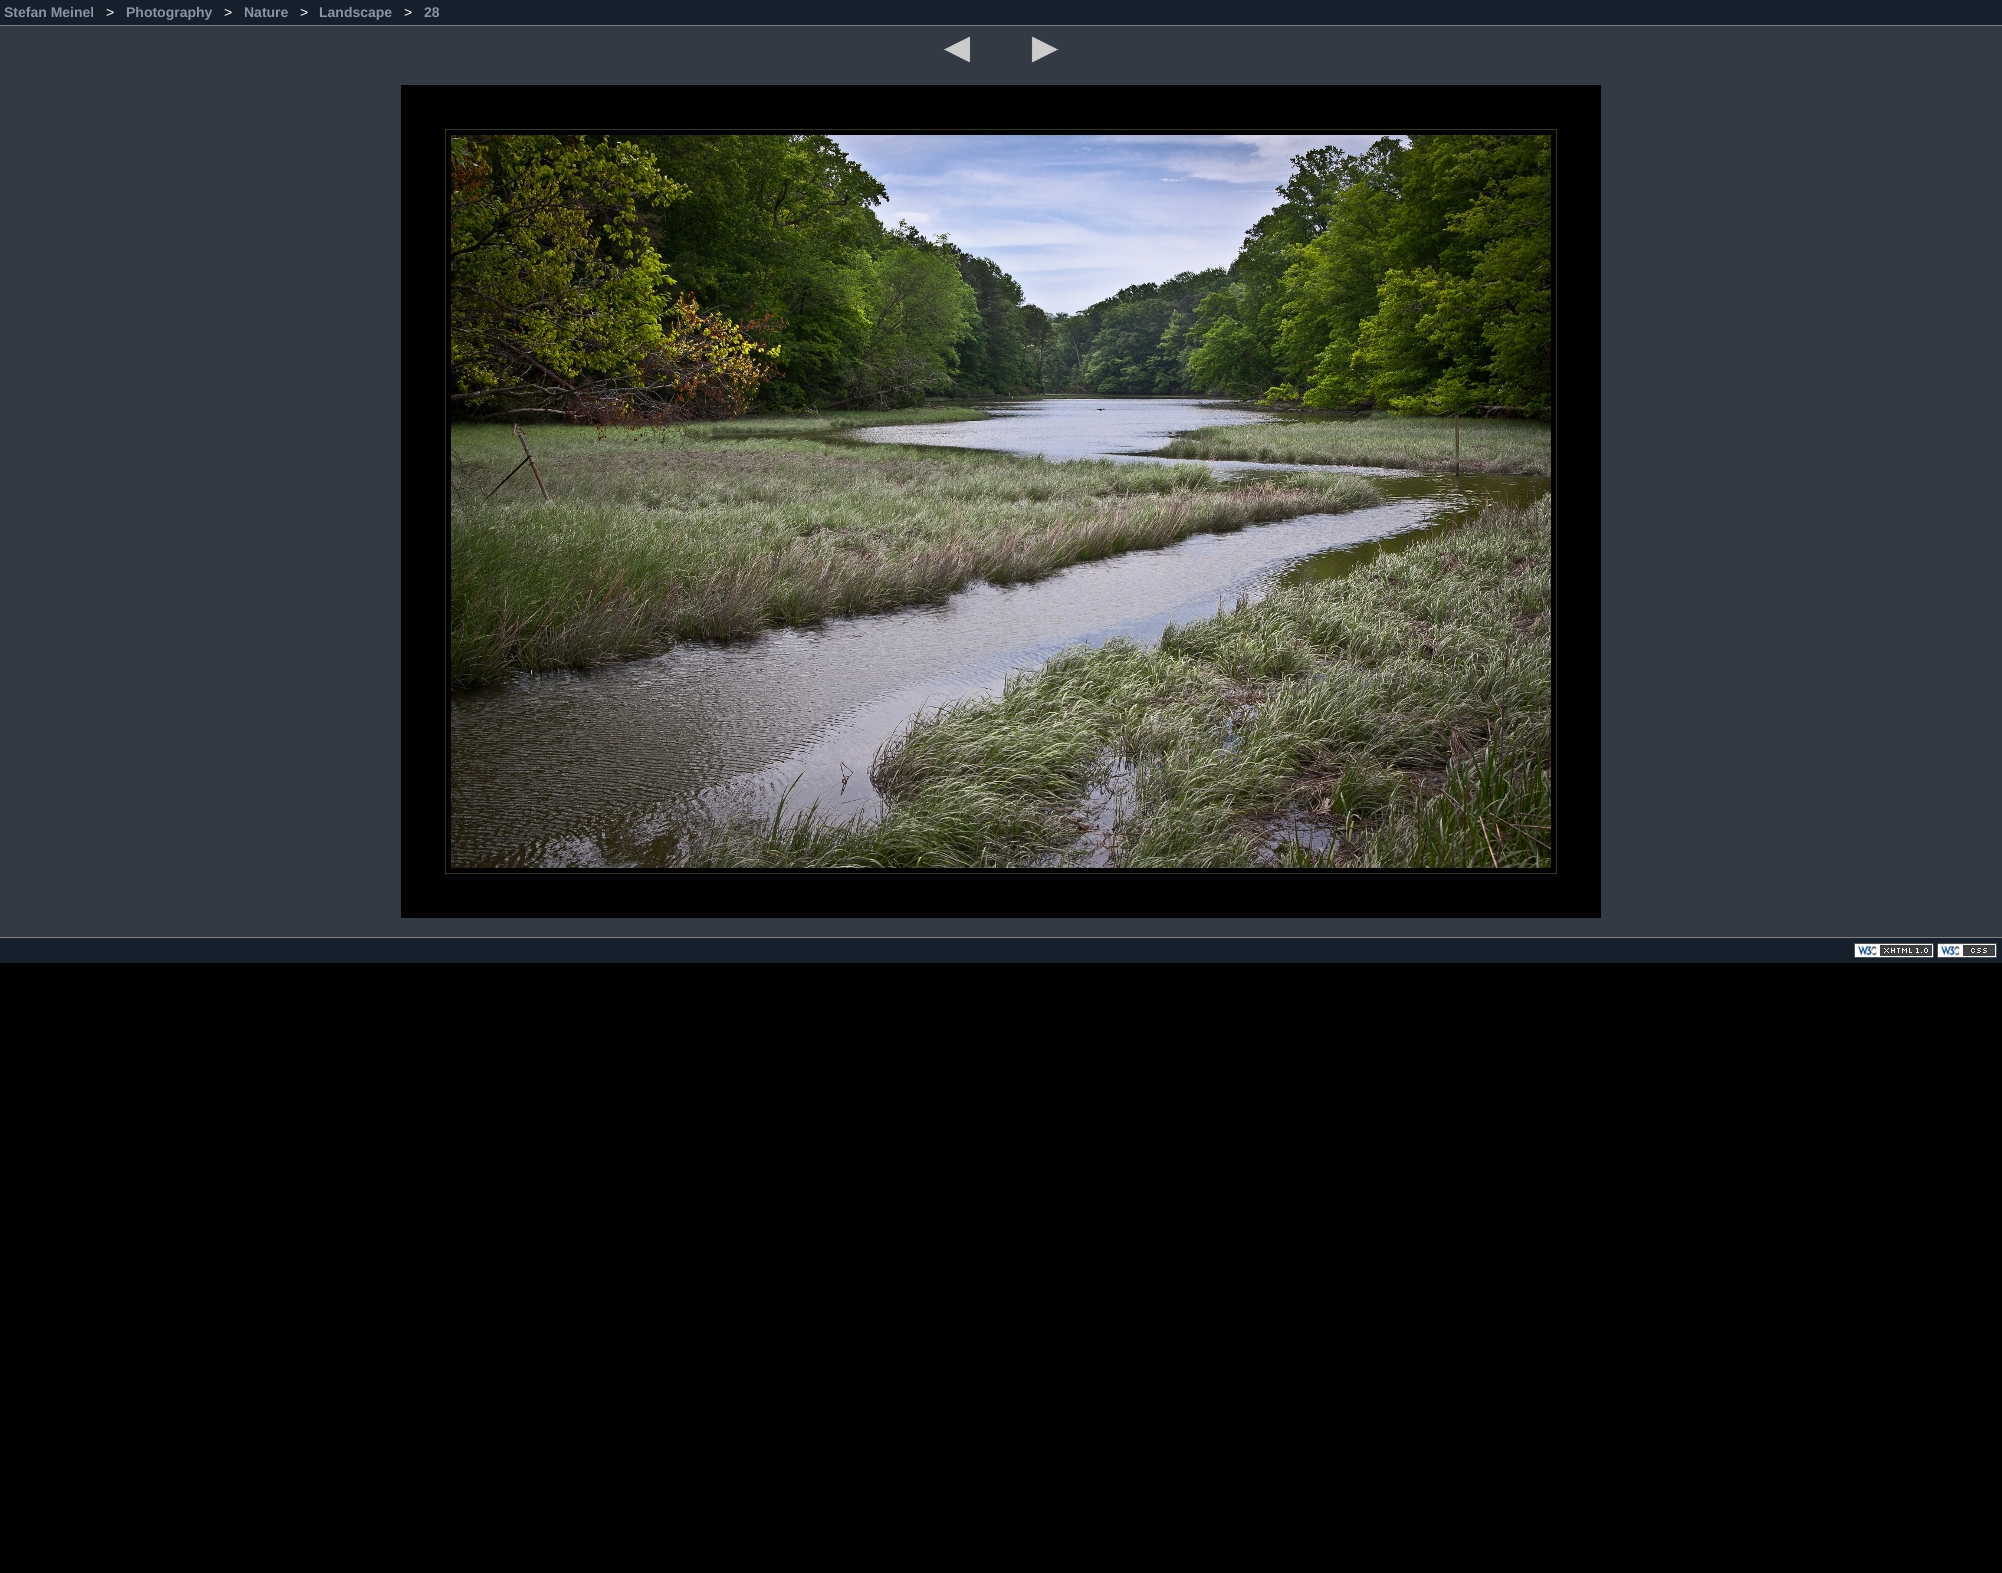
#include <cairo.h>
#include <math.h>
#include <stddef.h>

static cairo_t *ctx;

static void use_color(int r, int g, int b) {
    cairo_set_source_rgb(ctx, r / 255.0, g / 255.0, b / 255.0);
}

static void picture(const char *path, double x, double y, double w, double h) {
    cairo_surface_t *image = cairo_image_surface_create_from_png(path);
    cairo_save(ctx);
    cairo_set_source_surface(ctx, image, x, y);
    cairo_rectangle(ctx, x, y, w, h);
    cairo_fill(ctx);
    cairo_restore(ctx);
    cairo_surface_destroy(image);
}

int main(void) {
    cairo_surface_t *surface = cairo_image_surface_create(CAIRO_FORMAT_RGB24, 2002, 1573);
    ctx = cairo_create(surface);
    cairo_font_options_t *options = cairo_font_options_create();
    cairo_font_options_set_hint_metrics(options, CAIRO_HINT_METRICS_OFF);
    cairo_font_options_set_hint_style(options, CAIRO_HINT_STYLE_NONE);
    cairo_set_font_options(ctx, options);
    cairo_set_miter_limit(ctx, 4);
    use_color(0, 0, 0);
    cairo_paint(ctx);
    use_color(22, 31, 44);
    cairo_rectangle(ctx, 0, 0, 2002, 25);
    cairo_fill(ctx);
    cairo_select_font_face(ctx, "Liberation Sans", CAIRO_FONT_SLANT_NORMAL, CAIRO_FONT_WEIGHT_BOLD);
    cairo_set_font_size(ctx, 14);
    use_color(136, 150, 163);
    cairo_move_to(ctx, 4, 17);
    cairo_show_text(ctx, "Stefan Meinel");
    cairo_select_font_face(ctx, "Liberation Sans", CAIRO_FONT_SLANT_NORMAL, CAIRO_FONT_WEIGHT_NORMAL);
    use_color(255, 255, 255);
    cairo_move_to(ctx, 106, 17);
    cairo_show_text(ctx, ">");
    cairo_select_font_face(ctx, "Liberation Sans", CAIRO_FONT_SLANT_NORMAL, CAIRO_FONT_WEIGHT_BOLD);
    use_color(136, 150, 163);
    cairo_move_to(ctx, 126, 17);
    cairo_show_text(ctx, "Photography");
    cairo_select_font_face(ctx, "Liberation Sans", CAIRO_FONT_SLANT_NORMAL, CAIRO_FONT_WEIGHT_NORMAL);
    use_color(255, 255, 255);
    cairo_move_to(ctx, 224, 17);
    cairo_show_text(ctx, ">");
    cairo_select_font_face(ctx, "Liberation Sans", CAIRO_FONT_SLANT_NORMAL, CAIRO_FONT_WEIGHT_BOLD);
    use_color(136, 150, 163);
    cairo_move_to(ctx, 244, 17);
    cairo_show_text(ctx, "Nature");
    cairo_select_font_face(ctx, "Liberation Sans", CAIRO_FONT_SLANT_NORMAL, CAIRO_FONT_WEIGHT_NORMAL);
    use_color(255, 255, 255);
    cairo_move_to(ctx, 300, 17);
    cairo_show_text(ctx, ">");
    cairo_select_font_face(ctx, "Liberation Sans", CAIRO_FONT_SLANT_NORMAL, CAIRO_FONT_WEIGHT_BOLD);
    use_color(136, 150, 163);
    cairo_move_to(ctx, 319, 17);
    cairo_show_text(ctx, "Landscape");
    cairo_select_font_face(ctx, "Liberation Sans", CAIRO_FONT_SLANT_NORMAL, CAIRO_FONT_WEIGHT_NORMAL);
    use_color(255, 255, 255);
    cairo_move_to(ctx, 404, 17);
    cairo_show_text(ctx, ">");
    cairo_select_font_face(ctx, "Liberation Sans", CAIRO_FONT_SLANT_NORMAL, CAIRO_FONT_WEIGHT_BOLD);
    use_color(136, 150, 163);
    cairo_move_to(ctx, 424, 17);
    cairo_show_text(ctx, "28");
    use_color(128, 128, 128);
    cairo_rectangle(ctx, 0, 25, 2002, 1);
    cairo_fill(ctx);
    use_color(52, 58, 68);
    cairo_rectangle(ctx, 0, 26, 2002, 911);
    cairo_fill(ctx);
    picture("img1.png", 943, 36, 28, 27);
    picture("img2.png", 1031, 36, 28, 27);
    picture("img3.png", 401, 85, 1200, 833);
    use_color(128, 128, 128);
    cairo_rectangle(ctx, 0, 937, 2002, 1);
    cairo_fill(ctx);
    use_color(22, 31, 44);
    cairo_rectangle(ctx, 0, 938, 2002, 25);
    cairo_fill(ctx);
    picture("img4.png", 1854, 943, 80, 15);
    picture("img5.png", 1937, 943, 60, 15);
    cairo_surface_write_to_png(surface, "result.png");
    cairo_font_options_destroy(options);
    cairo_destroy(ctx);
    cairo_surface_destroy(surface);
    return 0;
}
